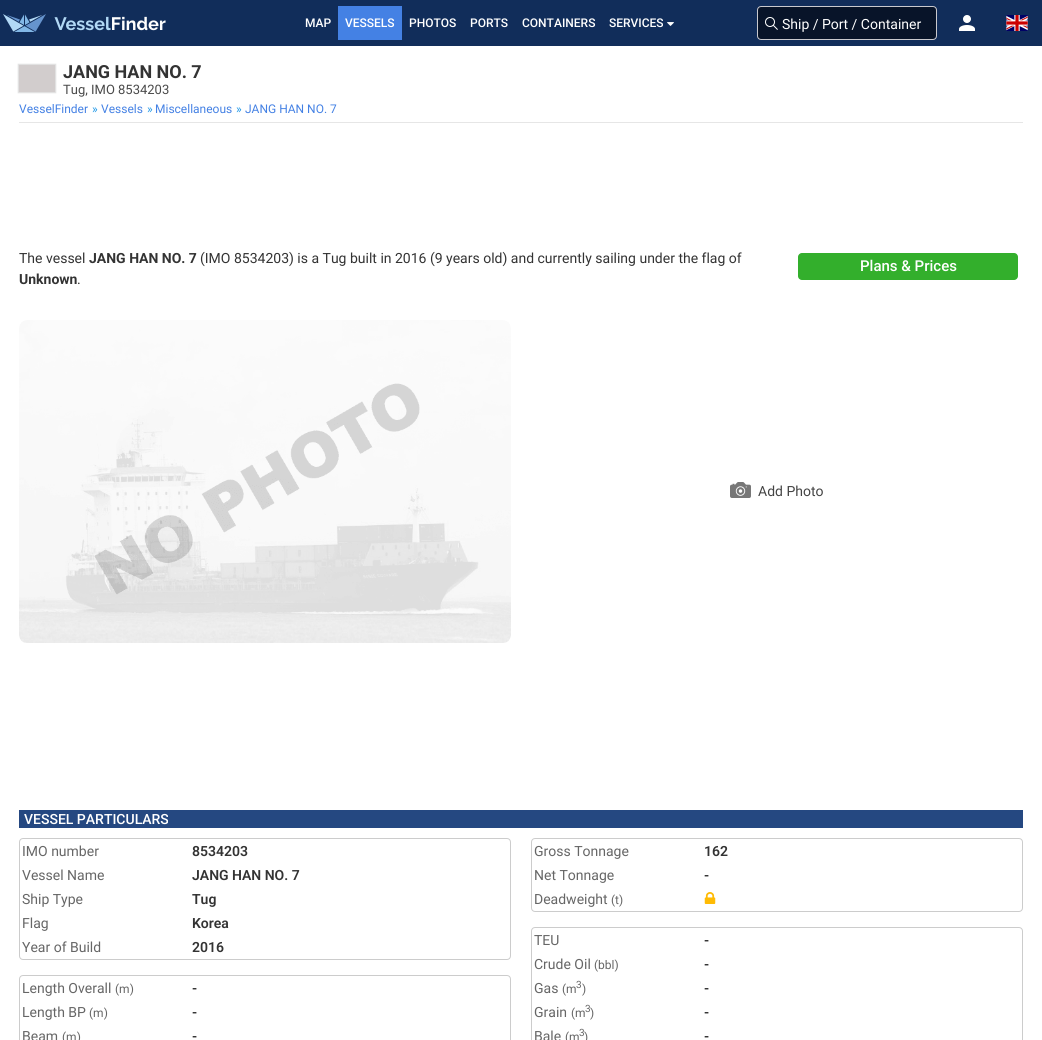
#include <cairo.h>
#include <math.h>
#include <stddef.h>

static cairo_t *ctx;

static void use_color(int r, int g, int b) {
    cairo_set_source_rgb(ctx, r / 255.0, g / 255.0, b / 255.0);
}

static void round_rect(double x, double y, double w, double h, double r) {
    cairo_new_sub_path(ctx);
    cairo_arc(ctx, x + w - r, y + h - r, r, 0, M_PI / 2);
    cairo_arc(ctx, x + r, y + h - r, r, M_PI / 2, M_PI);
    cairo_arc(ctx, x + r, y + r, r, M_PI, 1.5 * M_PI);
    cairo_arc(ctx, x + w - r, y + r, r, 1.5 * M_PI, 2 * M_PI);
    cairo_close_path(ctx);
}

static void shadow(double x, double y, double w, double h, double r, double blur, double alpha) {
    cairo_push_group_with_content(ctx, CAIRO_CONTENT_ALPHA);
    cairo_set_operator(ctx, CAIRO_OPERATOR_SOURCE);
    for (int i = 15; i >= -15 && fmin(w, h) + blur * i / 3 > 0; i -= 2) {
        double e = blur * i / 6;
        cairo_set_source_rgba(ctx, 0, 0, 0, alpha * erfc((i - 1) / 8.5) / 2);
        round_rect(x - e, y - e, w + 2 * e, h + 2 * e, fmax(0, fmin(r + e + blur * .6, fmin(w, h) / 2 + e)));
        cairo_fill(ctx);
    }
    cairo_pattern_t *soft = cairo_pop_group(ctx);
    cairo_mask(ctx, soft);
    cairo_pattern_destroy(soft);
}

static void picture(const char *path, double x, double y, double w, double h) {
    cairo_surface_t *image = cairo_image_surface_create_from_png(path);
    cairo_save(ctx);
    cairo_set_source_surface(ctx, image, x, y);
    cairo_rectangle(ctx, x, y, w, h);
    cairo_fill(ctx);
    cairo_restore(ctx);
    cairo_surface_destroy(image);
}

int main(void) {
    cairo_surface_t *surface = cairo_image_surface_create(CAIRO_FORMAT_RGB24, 1042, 1040);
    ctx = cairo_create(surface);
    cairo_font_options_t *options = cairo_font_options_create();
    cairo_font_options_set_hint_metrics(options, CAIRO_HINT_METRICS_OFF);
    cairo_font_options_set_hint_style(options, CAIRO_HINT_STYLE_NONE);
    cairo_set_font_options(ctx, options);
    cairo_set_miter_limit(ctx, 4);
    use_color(255, 255, 255);
    cairo_paint(ctx);
    use_color(17, 45, 90);
    cairo_rectangle(ctx, 0, 0, 1042, 46);
    cairo_fill(ctx);
    picture("img1.png", 3, 14, 43, 18);
    picture("img2.png", 54, 16, 112, 15);
    cairo_select_font_face(ctx, "Roboto Medium", CAIRO_FONT_SLANT_NORMAL, CAIRO_FONT_WEIGHT_NORMAL);
    cairo_set_font_size(ctx, 12);
    use_color(255, 255, 255);
    cairo_move_to(ctx, 305, 27);
    cairo_show_text(ctx, "MAP");
    use_color(68, 129, 228);
    cairo_rectangle(ctx, 338, 6, 64, 34);
    cairo_fill(ctx);
    use_color(255, 255, 255);
    cairo_move_to(ctx, 345, 27);
    cairo_show_text(ctx, "VESSELS");
    cairo_move_to(ctx, 409, 27);
    cairo_show_text(ctx, "PHOTOS");
    cairo_move_to(ctx, 470, 27);
    cairo_show_text(ctx, "PORTS");
    cairo_move_to(ctx, 522, 27);
    cairo_show_text(ctx, "CONTAINERS");
    cairo_move_to(ctx, 609, 27);
    cairo_show_text(ctx, "SERVICES");
    picture("img3.png", 667, 22, 7, 4);
    use_color(8, 20, 41);
    round_rect(757.5, 6.5, 179, 33, 3.5);
    cairo_fill_preserve(ctx);
    use_color(201, 201, 206);
    cairo_set_line_width(ctx, 1);
    cairo_stroke(ctx);
    picture("img4.png", 765, 17, 13, 13);
    cairo_select_font_face(ctx, "Roboto", CAIRO_FONT_SLANT_NORMAL, CAIRO_FONT_WEIGHT_NORMAL);
    cairo_set_font_size(ctx, 14);
    use_color(255, 255, 255);
    cairo_move_to(ctx, 782, 29);
    cairo_show_text(ctx, "Ship / Port / Container");
    picture("img5.png", 959, 15, 16, 16);
    picture("img6.png", 1006, 15, 22, 16);
    use_color(230, 230, 230);
    cairo_rectangle(ctx, 19, 122, 1004, 1);
    cairo_fill(ctx);
    use_color(221, 221, 221);
    shadow(18, 64, 38, 29, 0, 0.5, 1);
    use_color(210, 205, 205);
    cairo_rectangle(ctx, 19, 65, 36, 27);
    cairo_fill(ctx);
    cairo_select_font_face(ctx, "Roboto", CAIRO_FONT_SLANT_NORMAL, CAIRO_FONT_WEIGHT_BOLD);
    cairo_set_font_size(ctx, 18);
    use_color(51, 51, 51);
    cairo_move_to(ctx, 63, 78);
    cairo_show_text(ctx, "JANG HAN NO. 7");
    cairo_select_font_face(ctx, "Roboto", CAIRO_FONT_SLANT_NORMAL, CAIRO_FONT_WEIGHT_NORMAL);
    cairo_set_font_size(ctx, 13);
    use_color(74, 74, 74);
    cairo_move_to(ctx, 63, 94);
    cairo_show_text(ctx, "Tug, IMO 8534203");
    cairo_set_font_size(ctx, 12);
    use_color(68, 129, 228);
    cairo_move_to(ctx, 19, 113);
    cairo_show_text(ctx, "VesselFinder");
    use_color(33, 153, 232);
    cairo_move_to(ctx, 92, 113);
    cairo_show_text(ctx, "»");
    use_color(68, 129, 228);
    cairo_move_to(ctx, 101, 113);
    cairo_show_text(ctx, "Vessels");
    use_color(33, 153, 232);
    cairo_move_to(ctx, 147, 113);
    cairo_show_text(ctx, "»");
    use_color(68, 129, 228);
    cairo_move_to(ctx, 155, 113);
    cairo_show_text(ctx, "Miscellaneous");
    use_color(33, 153, 232);
    cairo_move_to(ctx, 236, 113);
    cairo_show_text(ctx, "»");
    use_color(68, 129, 228);
    cairo_move_to(ctx, 245, 113);
    cairo_show_text(ctx, "JANG HAN NO. 7");
    cairo_set_font_size(ctx, 14);
    use_color(51, 51, 51);
    cairo_move_to(ctx, 19, 263);
    cairo_show_text(ctx, "The vessel");
    cairo_select_font_face(ctx, "Roboto", CAIRO_FONT_SLANT_NORMAL, CAIRO_FONT_WEIGHT_BOLD);
    cairo_move_to(ctx, 89, 263);
    cairo_show_text(ctx, "JANG HAN NO. 7");
    cairo_select_font_face(ctx, "Roboto", CAIRO_FONT_SLANT_NORMAL, CAIRO_FONT_WEIGHT_NORMAL);
    cairo_move_to(ctx, 200, 263);
    cairo_show_text(ctx, "(IMO 8534203) is a Tug built in 2016 (9 years old) and currently sailing under the flag of");
    cairo_select_font_face(ctx, "Roboto", CAIRO_FONT_SLANT_NORMAL, CAIRO_FONT_WEIGHT_BOLD);
    cairo_move_to(ctx, 19, 284);
    cairo_show_text(ctx, "Unknown");
    cairo_select_font_face(ctx, "Roboto", CAIRO_FONT_SLANT_NORMAL, CAIRO_FONT_WEIGHT_NORMAL);
    cairo_move_to(ctx, 77, 284);
    cairo_show_text(ctx, ".");
    use_color(51, 175, 44);
    round_rect(798, 253, 220, 27, 4);
    cairo_fill(ctx);
    cairo_select_font_face(ctx, "Roboto Medium", CAIRO_FONT_SLANT_NORMAL, CAIRO_FONT_WEIGHT_NORMAL);
    cairo_set_font_size(ctx, 15);
    use_color(255, 255, 255);
    cairo_move_to(ctx, 860, 271);
    cairo_show_text(ctx, "Plans & Prices");
    picture("img7.png", 19, 320, 492, 323);
    picture("img8.png", 730, 482, 21, 16);
    cairo_select_font_face(ctx, "Roboto", CAIRO_FONT_SLANT_NORMAL, CAIRO_FONT_WEIGHT_NORMAL);
    cairo_set_font_size(ctx, 14);
    use_color(68, 68, 68);
    cairo_move_to(ctx, 758, 496);
    cairo_show_text(ctx, "Add Photo");
    use_color(37, 72, 129);
    cairo_rectangle(ctx, 19, 810, 1004, 18);
    cairo_fill(ctx);
    cairo_select_font_face(ctx, "Roboto Medium", CAIRO_FONT_SLANT_NORMAL, CAIRO_FONT_WEIGHT_NORMAL);
    use_color(255, 255, 255);
    cairo_move_to(ctx, 24, 824);
    cairo_show_text(ctx, "VESSEL PARTICULARS");
    round_rect(19.5, 838.5, 491, 121, 3.5);
    use_color(204, 204, 204);
    cairo_stroke(ctx);
    cairo_select_font_face(ctx, "Roboto", CAIRO_FONT_SLANT_NORMAL, CAIRO_FONT_WEIGHT_NORMAL);
    use_color(102, 102, 102);
    cairo_move_to(ctx, 22, 856);
    cairo_show_text(ctx, "IMO number");
    cairo_select_font_face(ctx, "Roboto SemiBold", CAIRO_FONT_SLANT_NORMAL, CAIRO_FONT_WEIGHT_NORMAL);
    use_color(51, 51, 51);
    cairo_move_to(ctx, 192, 856);
    cairo_show_text(ctx, "8534203");
    cairo_select_font_face(ctx, "Roboto", CAIRO_FONT_SLANT_NORMAL, CAIRO_FONT_WEIGHT_NORMAL);
    use_color(102, 102, 102);
    cairo_move_to(ctx, 22, 880);
    cairo_show_text(ctx, "Vessel Name");
    cairo_select_font_face(ctx, "Roboto SemiBold", CAIRO_FONT_SLANT_NORMAL, CAIRO_FONT_WEIGHT_NORMAL);
    use_color(51, 51, 51);
    cairo_move_to(ctx, 192, 880);
    cairo_show_text(ctx, "JANG HAN NO. 7");
    cairo_select_font_face(ctx, "Roboto", CAIRO_FONT_SLANT_NORMAL, CAIRO_FONT_WEIGHT_NORMAL);
    use_color(102, 102, 102);
    cairo_move_to(ctx, 22, 904);
    cairo_show_text(ctx, "Ship Type");
    cairo_select_font_face(ctx, "Roboto SemiBold", CAIRO_FONT_SLANT_NORMAL, CAIRO_FONT_WEIGHT_NORMAL);
    use_color(51, 51, 51);
    cairo_move_to(ctx, 192, 904);
    cairo_show_text(ctx, "Tug");
    cairo_select_font_face(ctx, "Roboto", CAIRO_FONT_SLANT_NORMAL, CAIRO_FONT_WEIGHT_NORMAL);
    use_color(102, 102, 102);
    cairo_move_to(ctx, 22, 928);
    cairo_show_text(ctx, "Flag");
    cairo_select_font_face(ctx, "Roboto SemiBold", CAIRO_FONT_SLANT_NORMAL, CAIRO_FONT_WEIGHT_NORMAL);
    use_color(51, 51, 51);
    cairo_move_to(ctx, 192, 928);
    cairo_show_text(ctx, "Korea");
    cairo_select_font_face(ctx, "Roboto", CAIRO_FONT_SLANT_NORMAL, CAIRO_FONT_WEIGHT_NORMAL);
    use_color(102, 102, 102);
    cairo_move_to(ctx, 22, 952);
    cairo_show_text(ctx, "Year of Build");
    cairo_select_font_face(ctx, "Roboto SemiBold", CAIRO_FONT_SLANT_NORMAL, CAIRO_FONT_WEIGHT_NORMAL);
    use_color(51, 51, 51);
    cairo_move_to(ctx, 192, 952);
    cairo_show_text(ctx, "2016");
    round_rect(19.5, 975.5, 491, 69, 3.5);
    use_color(204, 204, 204);
    cairo_stroke(ctx);
    cairo_select_font_face(ctx, "Roboto", CAIRO_FONT_SLANT_NORMAL, CAIRO_FONT_WEIGHT_NORMAL);
    use_color(102, 102, 102);
    cairo_move_to(ctx, 22, 993);
    cairo_show_text(ctx, "Length Overall");
    cairo_set_font_size(ctx, 12);
    cairo_move_to(ctx, 115, 993);
    cairo_show_text(ctx, "(m)");
    cairo_select_font_face(ctx, "Roboto SemiBold", CAIRO_FONT_SLANT_NORMAL, CAIRO_FONT_WEIGHT_NORMAL);
    cairo_set_font_size(ctx, 14);
    use_color(51, 51, 51);
    cairo_move_to(ctx, 192, 993);
    cairo_show_text(ctx, "-");
    cairo_select_font_face(ctx, "Roboto", CAIRO_FONT_SLANT_NORMAL, CAIRO_FONT_WEIGHT_NORMAL);
    use_color(102, 102, 102);
    cairo_move_to(ctx, 22, 1017);
    cairo_show_text(ctx, "Length BP");
    cairo_set_font_size(ctx, 12);
    cairo_move_to(ctx, 89, 1017);
    cairo_show_text(ctx, "(m)");
    cairo_select_font_face(ctx, "Roboto SemiBold", CAIRO_FONT_SLANT_NORMAL, CAIRO_FONT_WEIGHT_NORMAL);
    cairo_set_font_size(ctx, 14);
    use_color(51, 51, 51);
    cairo_move_to(ctx, 192, 1017);
    cairo_show_text(ctx, "-");
    cairo_select_font_face(ctx, "Roboto", CAIRO_FONT_SLANT_NORMAL, CAIRO_FONT_WEIGHT_NORMAL);
    use_color(102, 102, 102);
    cairo_move_to(ctx, 22, 1041);
    cairo_show_text(ctx, "Beam");
    cairo_set_font_size(ctx, 12);
    cairo_move_to(ctx, 62, 1041);
    cairo_show_text(ctx, "(m)");
    cairo_select_font_face(ctx, "Roboto SemiBold", CAIRO_FONT_SLANT_NORMAL, CAIRO_FONT_WEIGHT_NORMAL);
    cairo_set_font_size(ctx, 14);
    use_color(51, 51, 51);
    cairo_move_to(ctx, 192, 1041);
    cairo_show_text(ctx, "-");
    round_rect(531.5, 838.5, 491, 73, 3.5);
    use_color(204, 204, 204);
    cairo_stroke(ctx);
    cairo_select_font_face(ctx, "Roboto", CAIRO_FONT_SLANT_NORMAL, CAIRO_FONT_WEIGHT_NORMAL);
    use_color(102, 102, 102);
    cairo_move_to(ctx, 534, 856);
    cairo_show_text(ctx, "Gross Tonnage");
    cairo_select_font_face(ctx, "Roboto SemiBold", CAIRO_FONT_SLANT_NORMAL, CAIRO_FONT_WEIGHT_NORMAL);
    use_color(51, 51, 51);
    cairo_move_to(ctx, 704, 856);
    cairo_show_text(ctx, "162");
    cairo_select_font_face(ctx, "Roboto", CAIRO_FONT_SLANT_NORMAL, CAIRO_FONT_WEIGHT_NORMAL);
    use_color(102, 102, 102);
    cairo_move_to(ctx, 534, 880);
    cairo_show_text(ctx, "Net Tonnage");
    cairo_select_font_face(ctx, "Roboto SemiBold", CAIRO_FONT_SLANT_NORMAL, CAIRO_FONT_WEIGHT_NORMAL);
    use_color(51, 51, 51);
    cairo_move_to(ctx, 704, 880);
    cairo_show_text(ctx, "-");
    cairo_select_font_face(ctx, "Roboto", CAIRO_FONT_SLANT_NORMAL, CAIRO_FONT_WEIGHT_NORMAL);
    use_color(102, 102, 102);
    cairo_move_to(ctx, 534, 904);
    cairo_show_text(ctx, "Deadweight");
    cairo_set_font_size(ctx, 12);
    cairo_move_to(ctx, 611, 904);
    cairo_show_text(ctx, "(t)");
    picture("img9.png", 704, 892, 12, 12);
    round_rect(531.5, 927.5, 491, 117, 3.5);
    use_color(204, 204, 204);
    cairo_stroke(ctx);
    cairo_set_font_size(ctx, 14);
    use_color(102, 102, 102);
    cairo_move_to(ctx, 534, 945);
    cairo_show_text(ctx, "TEU");
    cairo_select_font_face(ctx, "Roboto SemiBold", CAIRO_FONT_SLANT_NORMAL, CAIRO_FONT_WEIGHT_NORMAL);
    use_color(51, 51, 51);
    cairo_move_to(ctx, 704, 945);
    cairo_show_text(ctx, "-");
    cairo_select_font_face(ctx, "Roboto", CAIRO_FONT_SLANT_NORMAL, CAIRO_FONT_WEIGHT_NORMAL);
    use_color(102, 102, 102);
    cairo_move_to(ctx, 534, 969);
    cairo_show_text(ctx, "Crude Oil");
    cairo_set_font_size(ctx, 12);
    cairo_move_to(ctx, 594, 969);
    cairo_show_text(ctx, "(bbl)");
    cairo_select_font_face(ctx, "Roboto SemiBold", CAIRO_FONT_SLANT_NORMAL, CAIRO_FONT_WEIGHT_NORMAL);
    cairo_set_font_size(ctx, 14);
    use_color(51, 51, 51);
    cairo_move_to(ctx, 704, 969);
    cairo_show_text(ctx, "-");
    cairo_select_font_face(ctx, "Roboto", CAIRO_FONT_SLANT_NORMAL, CAIRO_FONT_WEIGHT_NORMAL);
    use_color(102, 102, 102);
    cairo_move_to(ctx, 534, 993);
    cairo_show_text(ctx, "Gas");
    cairo_set_font_size(ctx, 12);
    cairo_move_to(ctx, 562, 993);
    cairo_show_text(ctx, "(m");
    cairo_set_font_size(ctx, 10);
    cairo_move_to(ctx, 576, 988);
    cairo_show_text(ctx, "3");
    cairo_set_font_size(ctx, 12);
    cairo_move_to(ctx, 582, 993);
    cairo_show_text(ctx, ")");
    cairo_select_font_face(ctx, "Roboto SemiBold", CAIRO_FONT_SLANT_NORMAL, CAIRO_FONT_WEIGHT_NORMAL);
    cairo_set_font_size(ctx, 14);
    use_color(51, 51, 51);
    cairo_move_to(ctx, 704, 993);
    cairo_show_text(ctx, "-");
    cairo_select_font_face(ctx, "Roboto", CAIRO_FONT_SLANT_NORMAL, CAIRO_FONT_WEIGHT_NORMAL);
    use_color(102, 102, 102);
    cairo_move_to(ctx, 534, 1017);
    cairo_show_text(ctx, "Grain");
    cairo_set_font_size(ctx, 12);
    cairo_move_to(ctx, 571, 1017);
    cairo_show_text(ctx, "(m");
    cairo_set_font_size(ctx, 10);
    cairo_move_to(ctx, 585, 1012);
    cairo_show_text(ctx, "3");
    cairo_set_font_size(ctx, 12);
    cairo_move_to(ctx, 590, 1017);
    cairo_show_text(ctx, ")");
    cairo_select_font_face(ctx, "Roboto SemiBold", CAIRO_FONT_SLANT_NORMAL, CAIRO_FONT_WEIGHT_NORMAL);
    cairo_set_font_size(ctx, 14);
    use_color(51, 51, 51);
    cairo_move_to(ctx, 704, 1017);
    cairo_show_text(ctx, "-");
    cairo_select_font_face(ctx, "Roboto", CAIRO_FONT_SLANT_NORMAL, CAIRO_FONT_WEIGHT_NORMAL);
    use_color(102, 102, 102);
    cairo_move_to(ctx, 534, 1041);
    cairo_show_text(ctx, "Bale");
    cairo_set_font_size(ctx, 12);
    cairo_move_to(ctx, 565, 1041);
    cairo_show_text(ctx, "(m");
    cairo_set_font_size(ctx, 10);
    cairo_move_to(ctx, 579, 1036);
    cairo_show_text(ctx, "3");
    cairo_set_font_size(ctx, 12);
    cairo_move_to(ctx, 584, 1041);
    cairo_show_text(ctx, ")");
    cairo_select_font_face(ctx, "Roboto SemiBold", CAIRO_FONT_SLANT_NORMAL, CAIRO_FONT_WEIGHT_NORMAL);
    cairo_set_font_size(ctx, 14);
    use_color(51, 51, 51);
    cairo_move_to(ctx, 704, 1041);
    cairo_show_text(ctx, "-");
    cairo_surface_write_to_png(surface, "result.png");
    cairo_font_options_destroy(options);
    cairo_destroy(ctx);
    cairo_surface_destroy(surface);
    return 0;
}
